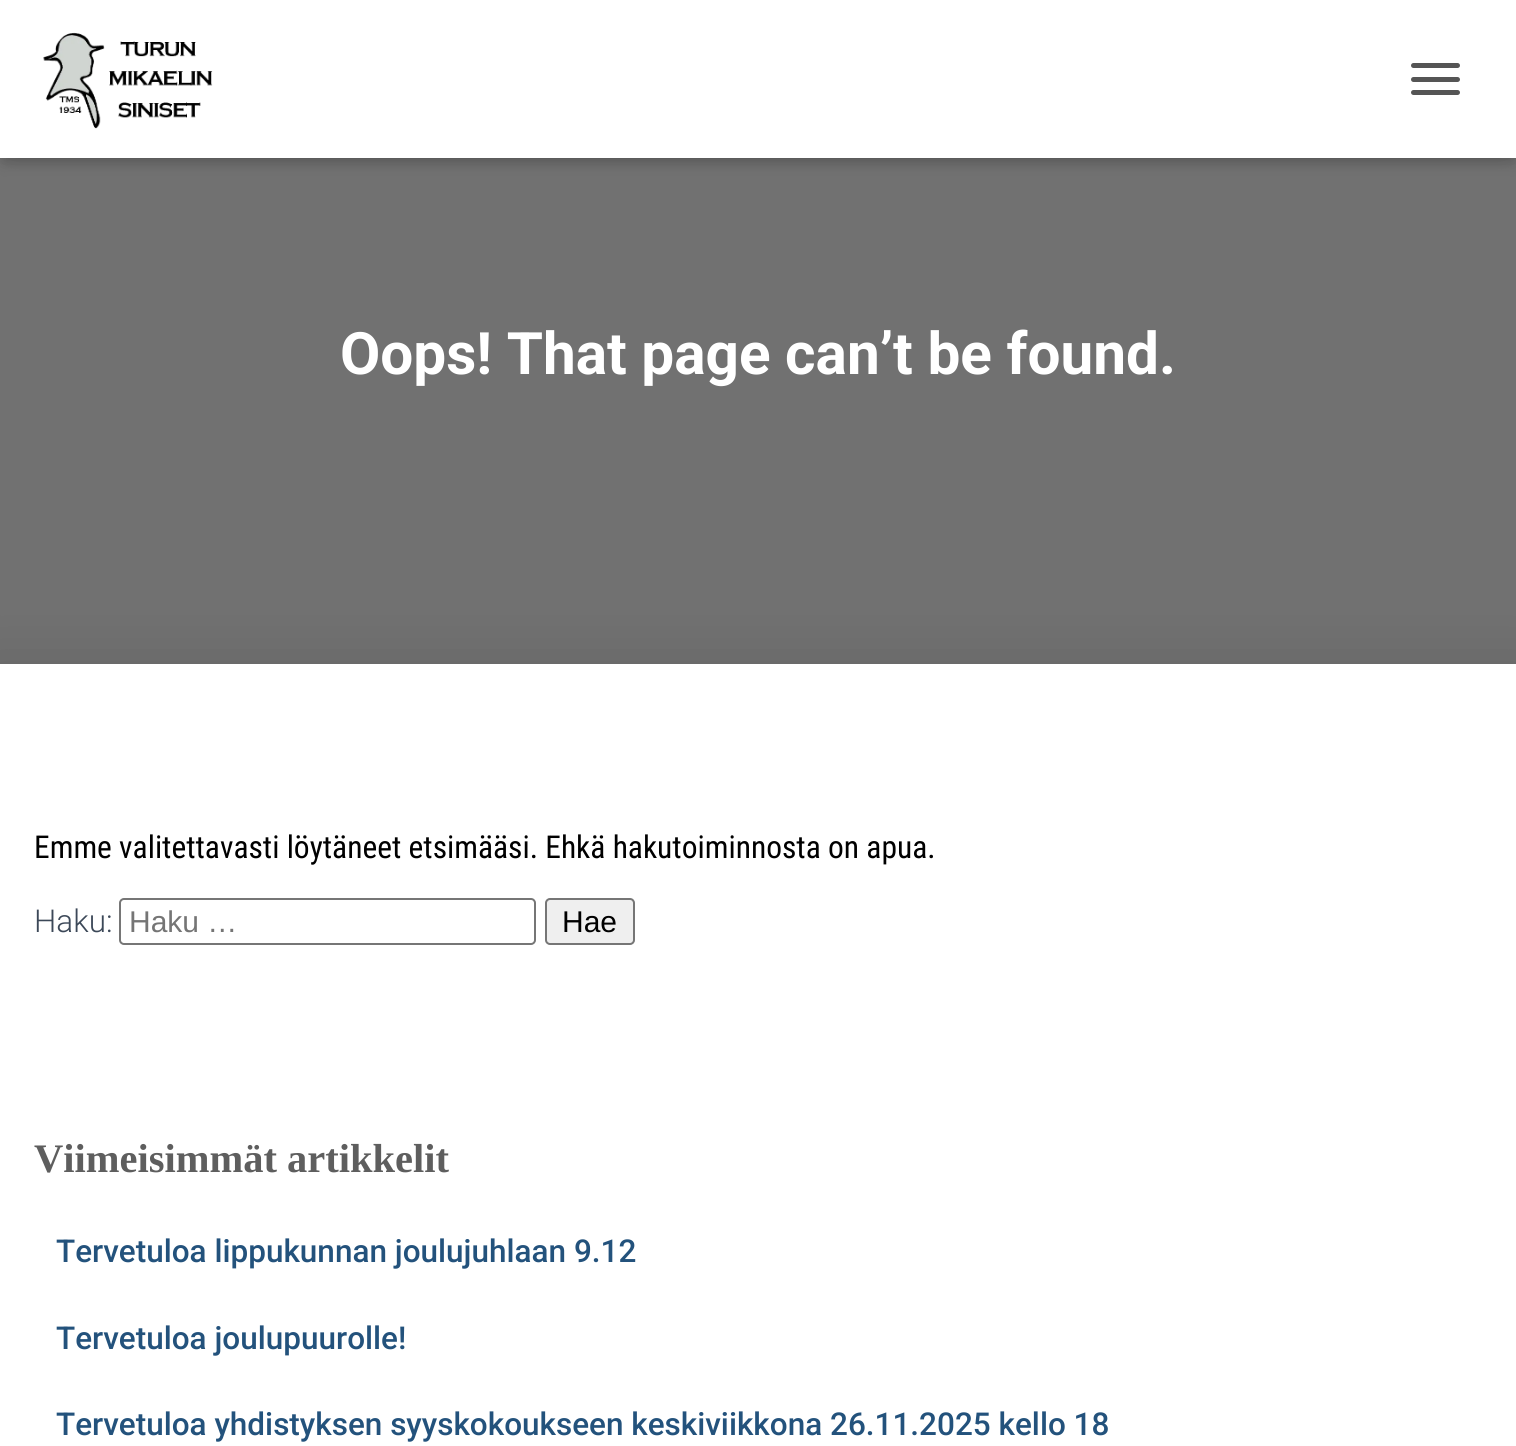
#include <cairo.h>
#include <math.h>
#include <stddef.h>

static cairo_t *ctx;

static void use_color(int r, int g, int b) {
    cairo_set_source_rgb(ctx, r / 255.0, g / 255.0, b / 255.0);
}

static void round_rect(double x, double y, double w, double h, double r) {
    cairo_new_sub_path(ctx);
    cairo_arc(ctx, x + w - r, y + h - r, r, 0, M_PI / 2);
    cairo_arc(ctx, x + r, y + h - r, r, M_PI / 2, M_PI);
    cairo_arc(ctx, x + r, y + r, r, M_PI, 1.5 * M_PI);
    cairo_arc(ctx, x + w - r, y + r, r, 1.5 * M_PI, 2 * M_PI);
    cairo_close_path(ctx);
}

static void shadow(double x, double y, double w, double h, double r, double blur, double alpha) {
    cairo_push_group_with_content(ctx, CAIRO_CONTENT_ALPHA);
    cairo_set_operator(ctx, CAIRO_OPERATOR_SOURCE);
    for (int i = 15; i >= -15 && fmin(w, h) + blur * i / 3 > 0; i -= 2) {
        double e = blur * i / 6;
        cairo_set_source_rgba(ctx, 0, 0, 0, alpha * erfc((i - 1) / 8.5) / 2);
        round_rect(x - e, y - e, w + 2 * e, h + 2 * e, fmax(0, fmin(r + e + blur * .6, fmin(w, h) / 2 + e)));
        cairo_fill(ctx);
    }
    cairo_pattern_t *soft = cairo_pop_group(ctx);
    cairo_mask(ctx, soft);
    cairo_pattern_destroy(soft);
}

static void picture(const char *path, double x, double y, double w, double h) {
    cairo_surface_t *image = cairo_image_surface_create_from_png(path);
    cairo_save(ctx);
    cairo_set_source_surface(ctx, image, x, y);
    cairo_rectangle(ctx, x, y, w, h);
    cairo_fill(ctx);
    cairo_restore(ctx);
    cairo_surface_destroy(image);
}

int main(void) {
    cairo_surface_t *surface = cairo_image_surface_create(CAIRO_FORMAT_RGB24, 1516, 1446);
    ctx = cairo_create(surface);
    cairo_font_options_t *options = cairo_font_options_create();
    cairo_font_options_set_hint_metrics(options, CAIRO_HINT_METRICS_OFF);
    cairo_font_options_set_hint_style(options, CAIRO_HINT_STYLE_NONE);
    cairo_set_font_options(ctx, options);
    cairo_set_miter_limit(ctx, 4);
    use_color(113, 113, 113);
    cairo_paint(ctx);
    use_color(0, 0, 0);
    shadow(5, 14, 1507, 148, 0, 5.5, 0.1);
    shadow(0, 2, 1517, 158, 0, 11, 0.12);
    shadow(14, 16, 1489, 130, 0, 11, 0.42);
    use_color(255, 255, 255);
    cairo_rectangle(ctx, 0, 0, 1516, 158);
    cairo_fill(ctx);
    picture("img1.png", 43, 32, 170, 97);
    use_color(85, 85, 85);
    round_rect(1411, 63, 49, 5, 2.5);
    cairo_fill(ctx);
    round_rect(1411, 77, 49, 5, 2.5);
    cairo_fill(ctx);
    round_rect(1411, 90, 49, 5, 2.5);
    cairo_fill(ctx);
    cairo_select_font_face(ctx, "Roboto", CAIRO_FONT_SLANT_NORMAL, CAIRO_FONT_WEIGHT_BOLD);
    cairo_set_font_size(ctx, 58.5);
    use_color(255, 255, 255);
    cairo_move_to(ctx, 340, 374);
    cairo_show_text(ctx, "Oops! That page can’t be found.");
    use_color(0, 0, 0);
    shadow(-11, 666, 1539, 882, 0, 34, 0.12);
    use_color(255, 255, 255);
    cairo_rectangle(ctx, 0, 664, 1516, 782);
    cairo_fill(ctx);
    cairo_select_font_face(ctx, "Roboto Condensed", CAIRO_FONT_SLANT_NORMAL, CAIRO_FONT_WEIGHT_NORMAL);
    cairo_set_font_size(ctx, 31.5);
    use_color(0, 0, 0);
    cairo_move_to(ctx, 34, 858);
    cairo_show_text(ctx, "Emme valitettavasti löytäneet etsimääsi. Ehkä hakutoiminnosta on apua.");
    cairo_select_font_face(ctx, "Roboto Light", CAIRO_FONT_SLANT_NORMAL, CAIRO_FONT_WEIGHT_NORMAL);
    use_color(60, 72, 88);
    cairo_move_to(ctx, 34, 932);
    cairo_show_text(ctx, "Haku:");
    round_rect(120, 899, 415, 45, 4);
    use_color(118, 118, 118);
    cairo_stroke(ctx);
    cairo_select_font_face(ctx, "Liberation Sans", CAIRO_FONT_SLANT_NORMAL, CAIRO_FONT_WEIGHT_NORMAL);
    cairo_set_font_size(ctx, 30);
    use_color(117, 117, 117);
    cairo_move_to(ctx, 129, 932);
    cairo_show_text(ctx, "Haku …");
    use_color(239, 239, 239);
    round_rect(546, 899, 88, 45, 4);
    cairo_fill_preserve(ctx);
    use_color(118, 118, 118);
    cairo_stroke(ctx);
    use_color(0, 0, 0);
    cairo_move_to(ctx, 562, 932);
    cairo_show_text(ctx, "Hae");
    cairo_select_font_face(ctx, "Liberation Serif", CAIRO_FONT_SLANT_NORMAL, CAIRO_FONT_WEIGHT_BOLD);
    cairo_set_font_size(ctx, 40.5);
    use_color(94, 94, 94);
    cairo_move_to(ctx, 34, 1172);
    cairo_show_text(ctx, "Viimeisimmät artikkelit");
    cairo_select_font_face(ctx, "Roboto Medium", CAIRO_FONT_SLANT_NORMAL, CAIRO_FONT_WEIGHT_NORMAL);
    cairo_set_font_size(ctx, 31.5);
    use_color(35, 82, 124);
    cairo_move_to(ctx, 56, 1262);
    cairo_show_text(ctx, "Tervetuloa lippukunnan joulujuhlaan 9.12");
    cairo_move_to(ctx, 56, 1349);
    cairo_show_text(ctx, "Tervetuloa joulupuurolle!");
    cairo_move_to(ctx, 56, 1435);
    cairo_show_text(ctx, "Tervetuloa yhdistyksen syyskokoukseen keskiviikkona 26.11.2025 kello 18");
    cairo_surface_write_to_png(surface, "result.png");
    cairo_font_options_destroy(options);
    cairo_destroy(ctx);
    cairo_surface_destroy(surface);
    return 0;
}
